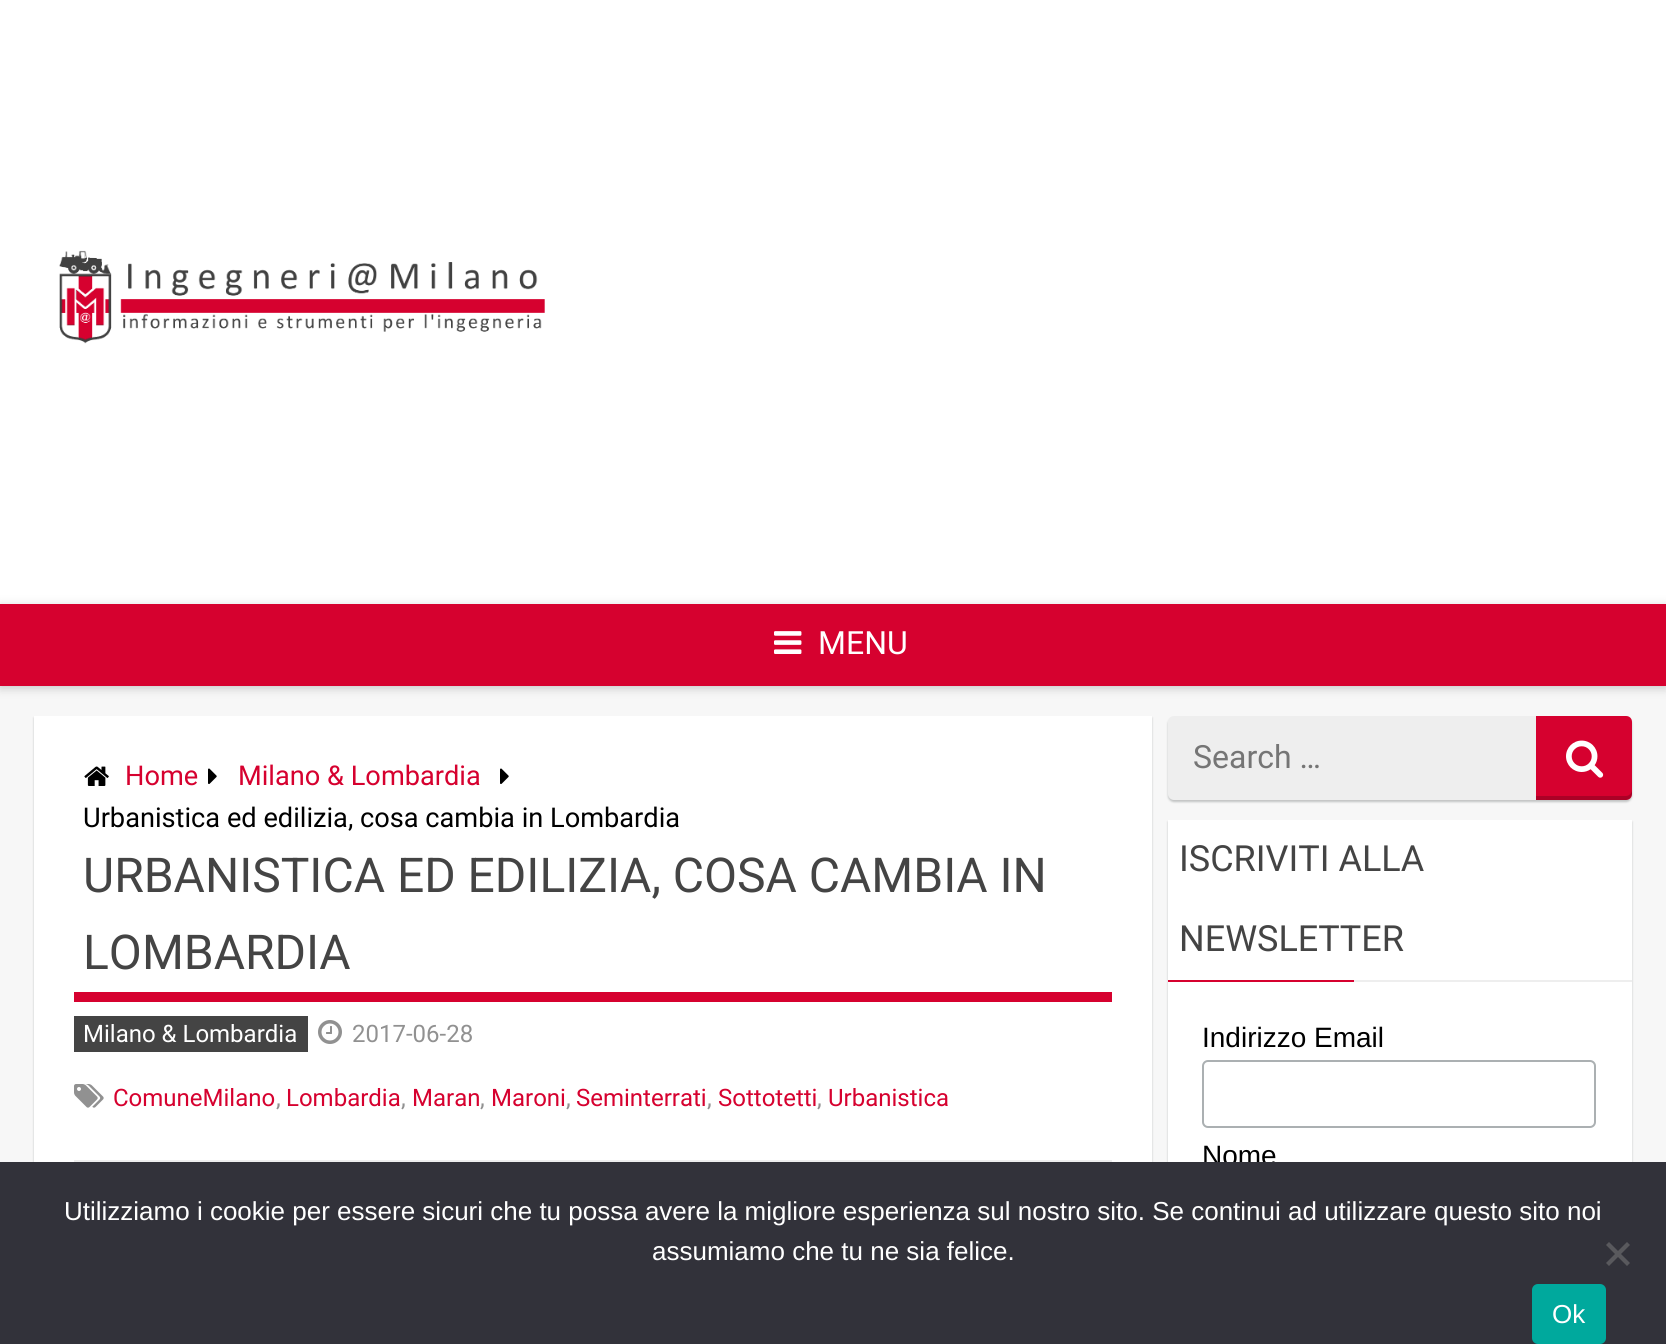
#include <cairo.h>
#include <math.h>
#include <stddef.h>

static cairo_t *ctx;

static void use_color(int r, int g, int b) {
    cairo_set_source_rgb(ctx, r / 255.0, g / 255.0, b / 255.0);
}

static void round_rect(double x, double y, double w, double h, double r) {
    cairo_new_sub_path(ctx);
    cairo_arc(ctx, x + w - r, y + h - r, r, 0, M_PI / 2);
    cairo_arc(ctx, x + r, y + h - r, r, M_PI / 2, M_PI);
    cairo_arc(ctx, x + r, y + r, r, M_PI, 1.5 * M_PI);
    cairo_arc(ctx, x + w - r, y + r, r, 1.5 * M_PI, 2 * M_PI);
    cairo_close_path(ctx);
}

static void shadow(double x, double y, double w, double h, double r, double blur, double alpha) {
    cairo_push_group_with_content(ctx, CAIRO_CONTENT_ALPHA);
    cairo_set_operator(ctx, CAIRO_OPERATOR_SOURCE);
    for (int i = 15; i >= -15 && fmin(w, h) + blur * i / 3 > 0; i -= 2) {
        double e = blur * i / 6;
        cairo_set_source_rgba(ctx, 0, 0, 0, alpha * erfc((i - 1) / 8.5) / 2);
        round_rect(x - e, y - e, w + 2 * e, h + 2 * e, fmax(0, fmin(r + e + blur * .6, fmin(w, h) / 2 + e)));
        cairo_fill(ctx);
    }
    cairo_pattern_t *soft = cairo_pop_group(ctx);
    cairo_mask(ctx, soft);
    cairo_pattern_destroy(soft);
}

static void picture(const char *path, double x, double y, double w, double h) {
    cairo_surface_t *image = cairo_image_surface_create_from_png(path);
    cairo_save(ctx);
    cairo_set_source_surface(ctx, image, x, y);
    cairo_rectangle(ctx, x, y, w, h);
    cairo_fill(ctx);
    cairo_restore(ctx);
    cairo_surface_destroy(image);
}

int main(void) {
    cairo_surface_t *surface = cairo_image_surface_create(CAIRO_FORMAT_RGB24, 1666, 1344);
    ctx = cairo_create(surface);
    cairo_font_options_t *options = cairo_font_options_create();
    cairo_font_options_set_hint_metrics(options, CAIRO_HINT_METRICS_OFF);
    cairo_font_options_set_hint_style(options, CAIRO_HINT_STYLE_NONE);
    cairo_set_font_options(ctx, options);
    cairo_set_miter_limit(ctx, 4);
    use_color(247, 247, 247);
    cairo_paint(ctx);
    use_color(255, 255, 255);
    cairo_rectangle(ctx, 0, 0, 1666, 604);
    cairo_fill(ctx);
    picture("img1.png", 59, 250, 486, 94);
    use_color(0, 0, 0);
    shadow(0, 606, 1666, 82, 0, 5, 0.2);
    use_color(214, 1, 47);
    cairo_rectangle(ctx, 0, 604, 1666, 82);
    cairo_fill(ctx);
    picture("img2.png", 774, 631, 28, 23);
    cairo_select_font_face(ctx, "Roboto", CAIRO_FONT_SLANT_NORMAL, CAIRO_FONT_WEIGHT_NORMAL);
    cairo_set_font_size(ctx, 32);
    use_color(255, 255, 255);
    cairo_move_to(ctx, 818, 654);
    cairo_show_text(ctx, "MENU");
    use_color(194, 196, 196);
    shadow(34, 718, 1118, 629, 0, 1, 1);
    use_color(255, 255, 255);
    cairo_rectangle(ctx, 34, 716, 1118, 446);
    cairo_fill(ctx);
    picture("img3.png", 84, 766, 25, 20);
    cairo_set_font_size(ctx, 27.2);
    use_color(214, 1, 47);
    cairo_move_to(ctx, 125, 785);
    cairo_show_text(ctx, "Home");
    picture("img4.png", 208, 768, 9, 16);
    cairo_move_to(ctx, 238, 785);
    cairo_show_text(ctx, "Milano & Lombardia");
    picture("img4.png", 500, 768, 9, 16);
    use_color(0, 0, 0);
    cairo_move_to(ctx, 83, 827);
    cairo_show_text(ctx, "Urbanistica ed edilizia, cosa cambia in Lombardia");
    use_color(238, 238, 238);
    cairo_rectangle(ctx, 74, 1160, 1038, 2);
    cairo_fill(ctx);
    use_color(214, 1, 47);
    cairo_rectangle(ctx, 74, 992, 1038, 10);
    cairo_fill(ctx);
    cairo_set_font_size(ctx, 48);
    use_color(68, 68, 68);
    cairo_move_to(ctx, 83, 892);
    cairo_show_text(ctx, "URBANISTICA ED EDILIZIA, COSA CAMBIA IN");
    cairo_move_to(ctx, 83, 969);
    cairo_show_text(ctx, "LOMBARDIA");
    cairo_rectangle(ctx, 74, 1016, 234, 36);
    cairo_fill(ctx);
    cairo_set_font_size(ctx, 24);
    use_color(255, 255, 255);
    cairo_move_to(ctx, 83, 1042);
    cairo_show_text(ctx, "Milano & Lombardia");
    picture("img5.png", 318, 1020, 24, 24);
    use_color(145, 145, 145);
    cairo_move_to(ctx, 352, 1042);
    cairo_show_text(ctx, "2017-06-28");
    picture("img6.png", 74, 1084, 30, 24);
    use_color(214, 1, 47);
    cairo_move_to(ctx, 113, 1106);
    cairo_show_text(ctx, "ComuneMilano");
    use_color(145, 145, 145);
    cairo_move_to(ctx, 276, 1106);
    cairo_show_text(ctx, ",");
    use_color(214, 1, 47);
    cairo_move_to(ctx, 286, 1106);
    cairo_show_text(ctx, "Lombardia");
    use_color(145, 145, 145);
    cairo_move_to(ctx, 401, 1106);
    cairo_show_text(ctx, ",");
    use_color(214, 1, 47);
    cairo_move_to(ctx, 412, 1106);
    cairo_show_text(ctx, "Maran");
    use_color(145, 145, 145);
    cairo_move_to(ctx, 480, 1106);
    cairo_show_text(ctx, ",");
    use_color(214, 1, 47);
    cairo_move_to(ctx, 491, 1106);
    cairo_show_text(ctx, "Maroni");
    use_color(145, 145, 145);
    cairo_move_to(ctx, 566, 1106);
    cairo_show_text(ctx, ",");
    use_color(214, 1, 47);
    cairo_move_to(ctx, 576, 1106);
    cairo_show_text(ctx, "Seminterrati");
    use_color(145, 145, 145);
    cairo_move_to(ctx, 707, 1106);
    cairo_show_text(ctx, ",");
    use_color(214, 1, 47);
    cairo_move_to(ctx, 718, 1106);
    cairo_show_text(ctx, "Sottotetti");
    use_color(145, 145, 145);
    cairo_move_to(ctx, 817, 1106);
    cairo_show_text(ctx, ",");
    use_color(214, 1, 47);
    cairo_move_to(ctx, 828, 1106);
    cairo_show_text(ctx, "Urbanistica");
    use_color(194, 196, 196);
    shadow(1168, 718, 464, 84, 6, 1, 1);
    use_color(238, 238, 238);
    round_rect(1168, 716, 464, 84, 6);
    cairo_fill(ctx);
    cairo_set_font_size(ctx, 32);
    use_color(117, 117, 117);
    cairo_move_to(ctx, 1193, 768);
    cairo_show_text(ctx, "Search …");
    use_color(214, 1, 47);
    cairo_new_path(ctx);
    cairo_move_to(ctx, 1536, 716);
    cairo_line_to(ctx, 1626, 716);
    cairo_curve_to(ctx, 1629.5, 716, 1632, 718.5, 1632, 722);
    cairo_line_to(ctx, 1632, 794);
    cairo_curve_to(ctx, 1632, 797.5, 1629.5, 800, 1626, 800);
    cairo_line_to(ctx, 1536, 800);
    cairo_close_path(ctx);
    cairo_fill(ctx);
    cairo_set_source_rgba(ctx, 0, 0, 0, 0.2);
    cairo_new_path(ctx);
    cairo_move_to(ctx, 1536, 800);
    cairo_line_to(ctx, 1626, 800);
    cairo_curve_to(ctx, 1629, 800, 1632, 797, 1632, 794);
    cairo_line_to(ctx, 1632, 790);
    cairo_curve_to(ctx, 1632, 793, 1629, 796, 1626, 796);
    cairo_line_to(ctx, 1536, 796);
    cairo_close_path(ctx);
    cairo_fill(ctx);
    picture("img7.png", 1566, 740, 38, 38);
    use_color(194, 196, 196);
    shadow(1168, 822, 464, 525, 0, 1, 1);
    use_color(255, 255, 255);
    cairo_rectangle(ctx, 1168, 820, 464, 342);
    cairo_fill(ctx);
    use_color(238, 238, 238);
    cairo_rectangle(ctx, 1354, 980, 278, 2);
    cairo_fill(ctx);
    cairo_set_font_size(ctx, 36);
    use_color(68, 68, 68);
    cairo_move_to(ctx, 1179, 871);
    cairo_show_text(ctx, "ISCRIVITI ALLA");
    cairo_move_to(ctx, 1179, 951);
    cairo_show_text(ctx, "NEWSLETTER");
    use_color(214, 1, 47);
    cairo_rectangle(ctx, 1168, 980, 186, 2);
    cairo_fill(ctx);
    cairo_select_font_face(ctx, "Liberation Sans", CAIRO_FONT_SLANT_NORMAL, CAIRO_FONT_WEIGHT_NORMAL);
    cairo_set_font_size(ctx, 28);
    use_color(0, 0, 0);
    cairo_move_to(ctx, 1202, 1047);
    cairo_show_text(ctx, "Indirizzo Email");
    round_rect(1203, 1061, 392, 66, 5);
    use_color(171, 176, 178);
    cairo_stroke(ctx);
    use_color(0, 0, 0);
    cairo_move_to(ctx, 1202, 1165);
    cairo_show_text(ctx, "Nome");
    use_color(50, 50, 58);
    cairo_rectangle(ctx, 0, 1162, 1666, 182);
    cairo_fill(ctx);
    cairo_set_font_size(ctx, 26);
    use_color(255, 255, 255);
    cairo_move_to(ctx, 64, 1220);
    cairo_show_text(ctx, "Utilizziamo i cookie per essere sicuri che tu possa avere la migliore esperienza sul nostro sito. Se continui ad utilizzare questo sito noi");
    cairo_move_to(ctx, 652, 1260);
    cairo_show_text(ctx, "assumiamo che tu ne sia felice.");
    use_color(89, 89, 93);
    cairo_new_path(ctx);
    cairo_move_to(ctx, 1627, 1242);
    cairo_line_to(ctx, 1630, 1245);
    cairo_line_to(ctx, 1609, 1266);
    cairo_line_to(ctx, 1606, 1263);
    cairo_close_path(ctx);
    cairo_fill(ctx);
    cairo_new_path(ctx);
    cairo_move_to(ctx, 1606, 1245);
    cairo_line_to(ctx, 1609, 1242);
    cairo_line_to(ctx, 1630, 1263);
    cairo_line_to(ctx, 1627, 1266);
    cairo_close_path(ctx);
    cairo_fill(ctx);
    use_color(0, 169, 157);
    round_rect(1532, 1284, 74, 60, 6);
    cairo_fill(ctx);
    use_color(255, 255, 255);
    cairo_move_to(ctx, 1552, 1323);
    cairo_show_text(ctx, "Ok");
    cairo_surface_write_to_png(surface, "result.png");
    cairo_font_options_destroy(options);
    cairo_destroy(ctx);
    cairo_surface_destroy(surface);
    return 0;
}
